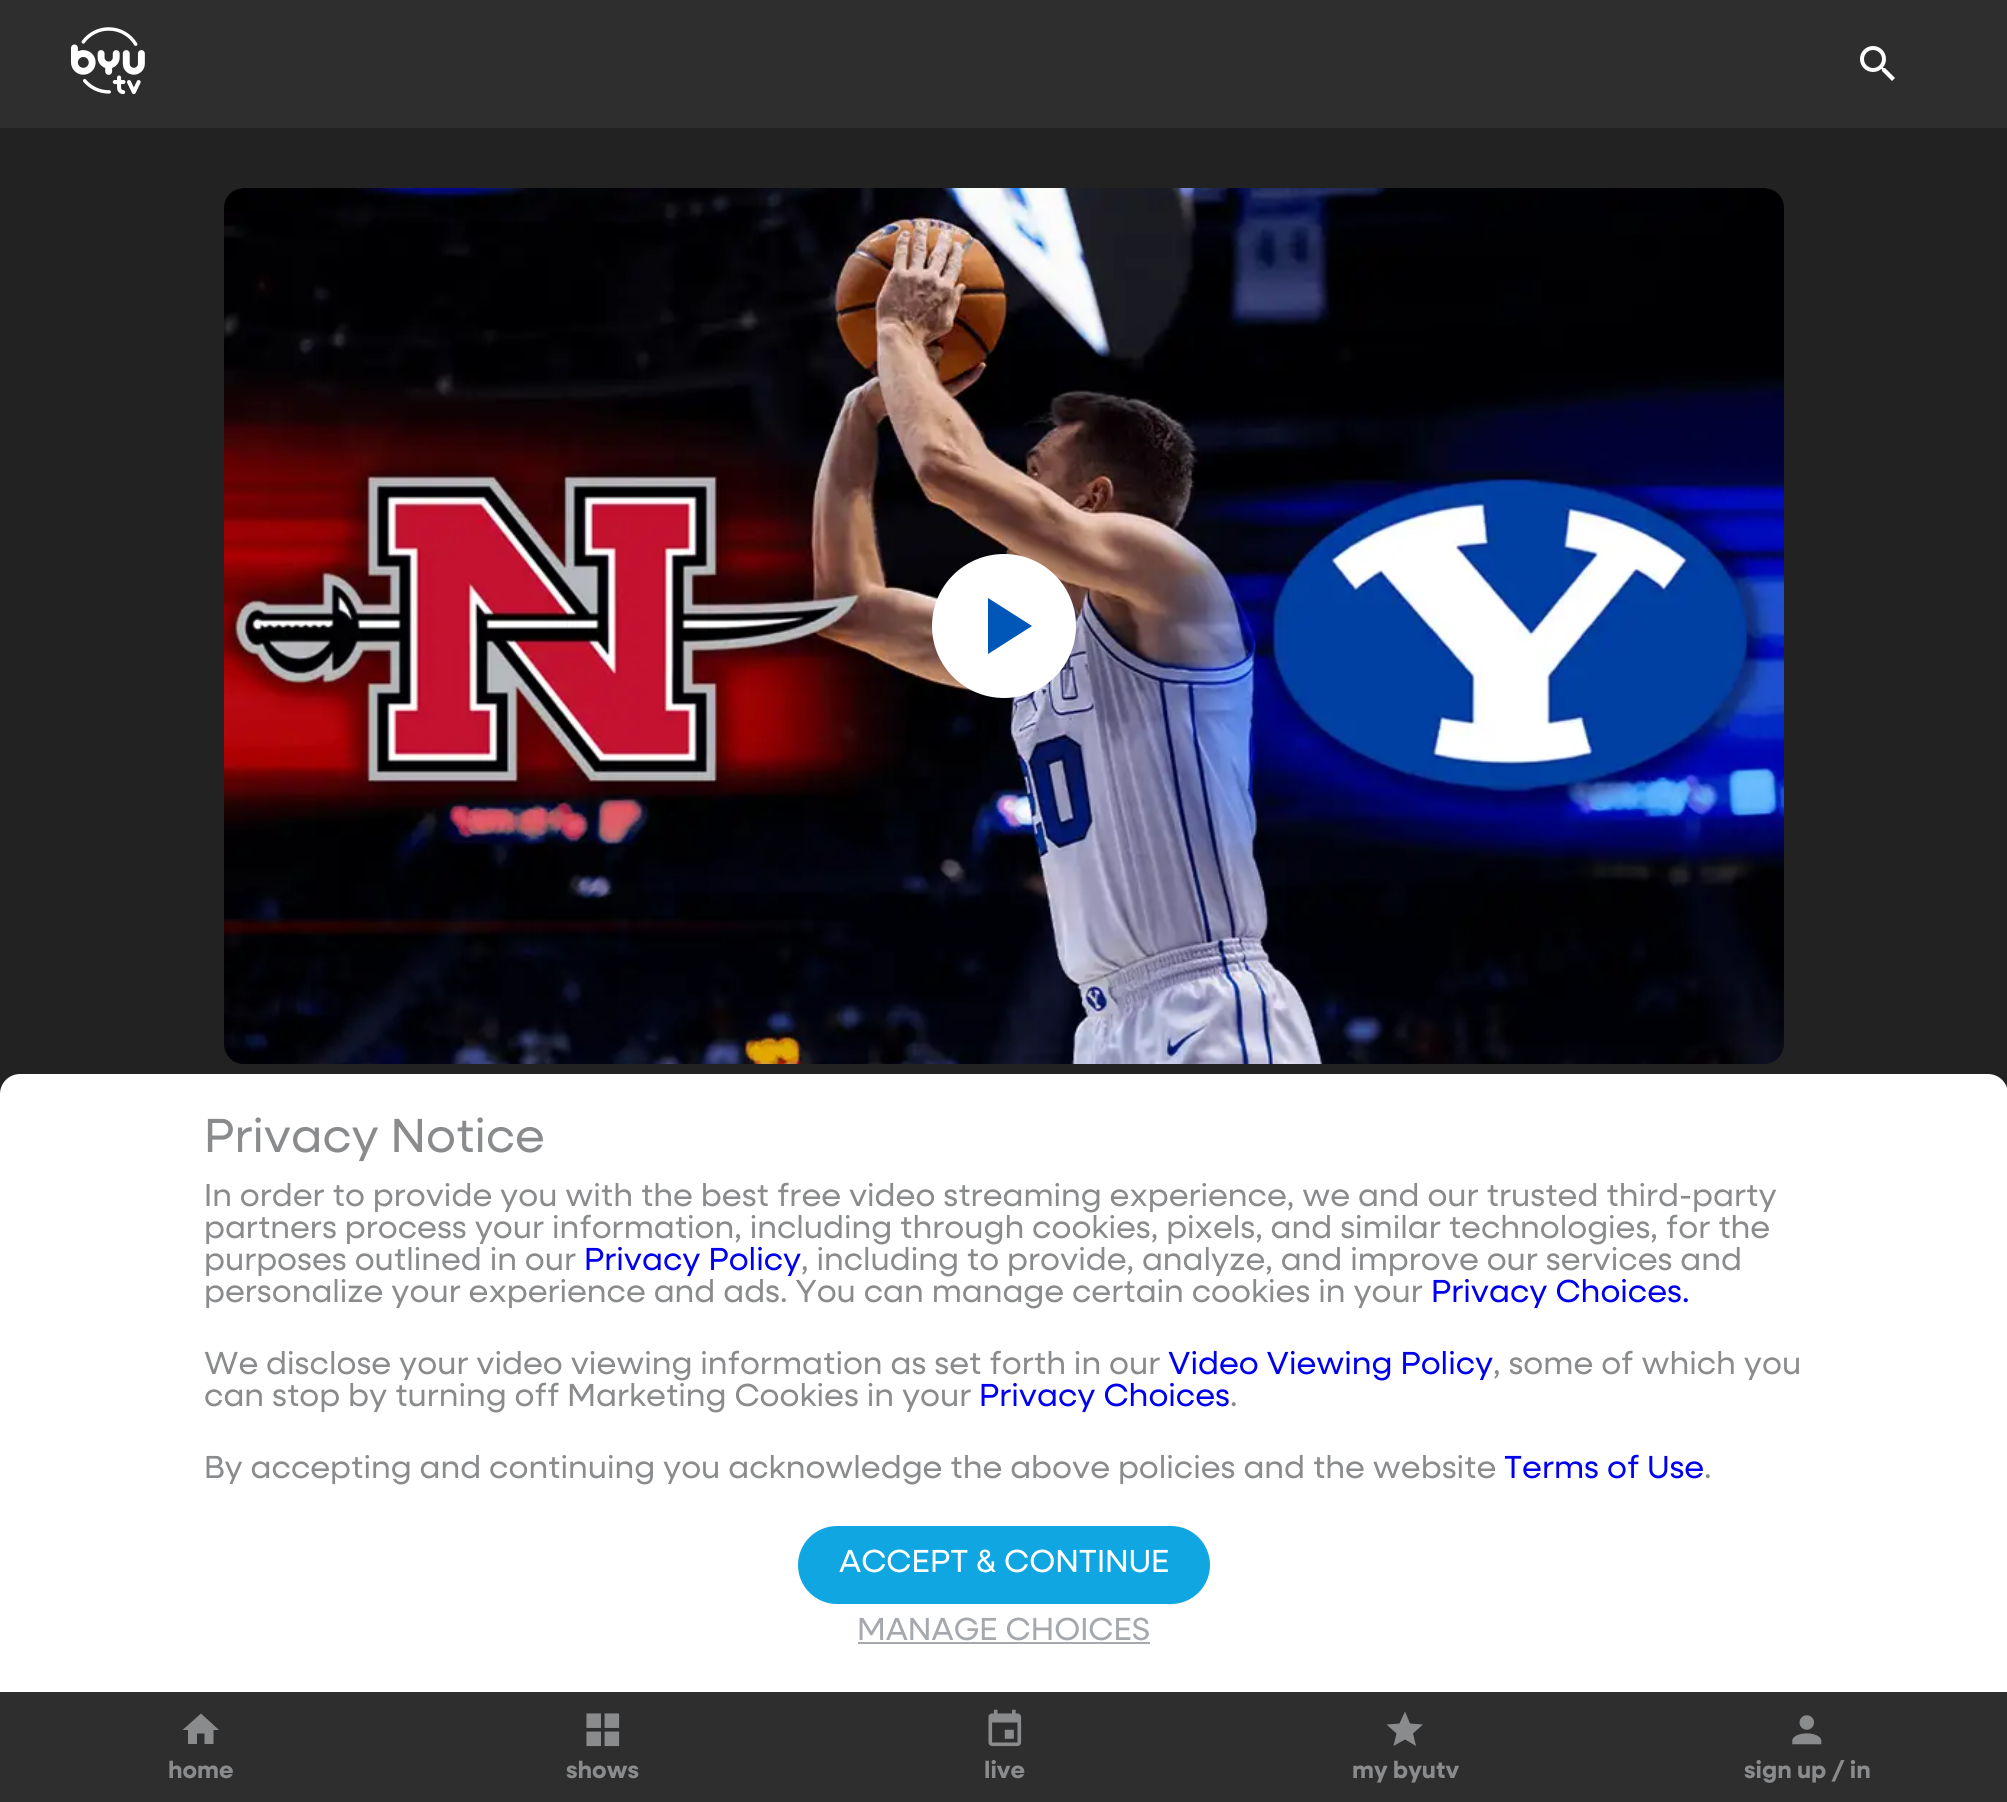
#include <cairo.h>
#include <math.h>
#include <stddef.h>

static cairo_t *ctx;

static void use_color(int r, int g, int b) {
    cairo_set_source_rgb(ctx, r / 255.0, g / 255.0, b / 255.0);
}

static void round_rect(double x, double y, double w, double h, double r) {
    cairo_new_sub_path(ctx);
    cairo_arc(ctx, x + w - r, y + h - r, r, 0, M_PI / 2);
    cairo_arc(ctx, x + r, y + h - r, r, M_PI / 2, M_PI);
    cairo_arc(ctx, x + r, y + r, r, M_PI, 1.5 * M_PI);
    cairo_arc(ctx, x + w - r, y + r, r, 1.5 * M_PI, 2 * M_PI);
    cairo_close_path(ctx);
}

static void picture(const char *path, double x, double y, double w, double h) {
    cairo_surface_t *image = cairo_image_surface_create_from_png(path);
    cairo_save(ctx);
    cairo_set_source_surface(ctx, image, x, y);
    cairo_rectangle(ctx, x, y, w, h);
    cairo_fill(ctx);
    cairo_restore(ctx);
    cairo_surface_destroy(image);
}

int main(void) {
    cairo_surface_t *surface = cairo_image_surface_create(CAIRO_FORMAT_RGB24, 2007, 1802);
    ctx = cairo_create(surface);
    cairo_font_options_t *options = cairo_font_options_create();
    cairo_font_options_set_hint_metrics(options, CAIRO_HINT_METRICS_OFF);
    cairo_font_options_set_hint_style(options, CAIRO_HINT_STYLE_NONE);
    cairo_set_font_options(ctx, options);
    cairo_set_miter_limit(ctx, 4);
    use_color(34, 34, 34);
    cairo_paint(ctx);
    use_color(46, 46, 46);
    cairo_rectangle(ctx, 0, 0, 2007, 128);
    cairo_fill(ctx);
    picture("img1.png", 71, 27, 74, 68);
    picture("img2.png", 1860, 46, 35, 35);
    picture("img3.png", 224, 188, 1560, 876);
    use_color(255, 255, 255);
    cairo_arc(ctx, 1004, 626, 70, 0, 2 * M_PI);
    cairo_fill_preserve(ctx);
    cairo_set_line_width(ctx, 4);
    cairo_stroke(ctx);
    use_color(0, 87, 184);
    cairo_new_path(ctx);
    cairo_move_to(ctx, 988, 598);
    cairo_line_to(ctx, 988, 654);
    cairo_line_to(ctx, 1032, 626);
    cairo_close_path(ctx);
    cairo_fill(ctx);
    use_color(255, 255, 255);
    cairo_new_path(ctx);
    cairo_move_to(ctx, 20, 1074);
    cairo_line_to(ctx, 1988, 1074);
    cairo_curve_to(ctx, 1999, 1074, 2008, 1083, 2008, 1094);
    cairo_line_to(ctx, 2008, 1692);
    cairo_line_to(ctx, 0, 1692);
    cairo_line_to(ctx, 0, 1094);
    cairo_curve_to(ctx, 0, 1083, 9, 1074, 20, 1074);
    cairo_close_path(ctx);
    cairo_fill(ctx);
    cairo_select_font_face(ctx, "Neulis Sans", CAIRO_FONT_SLANT_NORMAL, CAIRO_FONT_WEIGHT_NORMAL);
    cairo_set_font_size(ctx, 48);
    use_color(137, 139, 141);
    cairo_move_to(ctx, 204, 1152);
    cairo_show_text(ctx, "Privacy Notice");
    cairo_set_font_size(ctx, 32);
    cairo_move_to(ctx, 204, 1206);
    cairo_show_text(ctx, "In order to provide you with the best free video streaming experience, we and our trusted third-party");
    cairo_move_to(ctx, 204, 1238);
    cairo_show_text(ctx, "partners process your information, including through cookies, pixels, and similar technologies, for the");
    cairo_move_to(ctx, 204, 1270);
    cairo_show_text(ctx, "purposes outlined in our");
    use_color(0, 0, 238);
    cairo_move_to(ctx, 584, 1270);
    cairo_show_text(ctx, "Privacy Policy");
    use_color(137, 139, 141);
    cairo_move_to(ctx, 801, 1270);
    cairo_show_text(ctx, ", including to provide, analyze, and improve our services and");
    cairo_move_to(ctx, 204, 1302);
    cairo_show_text(ctx, "personalize your experience and ads. You can manage certain cookies in your");
    use_color(0, 0, 238);
    cairo_move_to(ctx, 1431, 1302);
    cairo_show_text(ctx, "Privacy Choices.");
    use_color(137, 139, 141);
    cairo_move_to(ctx, 204, 1374);
    cairo_show_text(ctx, "We disclose your video viewing information as set forth in our");
    use_color(0, 0, 238);
    cairo_move_to(ctx, 1168, 1374);
    cairo_show_text(ctx, "Video Viewing Policy");
    use_color(137, 139, 141);
    cairo_move_to(ctx, 1493, 1374);
    cairo_show_text(ctx, ", some of which you");
    cairo_move_to(ctx, 204, 1406);
    cairo_show_text(ctx, "can stop by turning off Marketing Cookies in your");
    use_color(0, 0, 238);
    cairo_move_to(ctx, 979, 1406);
    cairo_show_text(ctx, "Privacy Choices");
    use_color(137, 139, 141);
    cairo_move_to(ctx, 1230, 1406);
    cairo_show_text(ctx, ".");
    cairo_move_to(ctx, 204, 1478);
    cairo_show_text(ctx, "By accepting and continuing you acknowledge the above policies and the website");
    use_color(0, 0, 238);
    cairo_move_to(ctx, 1504, 1478);
    cairo_show_text(ctx, "Terms of Use");
    use_color(137, 139, 141);
    cairo_move_to(ctx, 1704, 1478);
    cairo_show_text(ctx, ".");
    use_color(15, 166, 226);
    round_rect(798, 1526, 412, 78, 39);
    cairo_fill(ctx);
    use_color(255, 255, 255);
    cairo_move_to(ctx, 839, 1572);
    cairo_show_text(ctx, "ACCEPT & CONTINUE");
    use_color(165, 168, 172);
    cairo_move_to(ctx, 857, 1640);
    cairo_show_text(ctx, "MANAGE CHOICES");
    cairo_rectangle(ctx, 858, 1642, 292, 2);
    cairo_fill(ctx);
    use_color(46, 46, 46);
    cairo_rectangle(ctx, 0, 1692, 2007, 110);
    cairo_fill(ctx);
    use_color(137, 139, 141);
    cairo_new_path(ctx);
    cairo_move_to(ctx, 197, 1744);
    cairo_line_to(ctx, 197, 1733.5);
    cairo_line_to(ctx, 204.5, 1733.5);
    cairo_line_to(ctx, 204.5, 1744);
    cairo_line_to(ctx, 213.5, 1744);
    cairo_line_to(ctx, 213.5, 1730);
    cairo_line_to(ctx, 219, 1730);
    cairo_line_to(ctx, 201, 1713.5);
    cairo_line_to(ctx, 182.5, 1730);
    cairo_line_to(ctx, 188, 1730);
    cairo_line_to(ctx, 188, 1744);
    cairo_close_path(ctx);
    cairo_fill(ctx);
    cairo_select_font_face(ctx, "Neulis Sans", CAIRO_FONT_SLANT_NORMAL, CAIRO_FONT_WEIGHT_BOLD);
    cairo_set_font_size(ctx, 24);
    cairo_move_to(ctx, 168, 1778);
    cairo_show_text(ctx, "home");
    picture("img4.png", 586, 1713, 34, 34);
    cairo_move_to(ctx, 566, 1778);
    cairo_show_text(ctx, "shows");
    picture("img5.png", 988, 1709, 34, 38);
    cairo_move_to(ctx, 984, 1778);
    cairo_show_text(ctx, "live");
    cairo_new_path(ctx);
    cairo_move_to(ctx, 1405, 1739.5);
    cairo_line_to(ctx, 1416, 1746);
    cairo_line_to(ctx, 1413, 1733.5);
    cairo_line_to(ctx, 1423, 1724.5);
    cairo_line_to(ctx, 1410, 1723.5);
    cairo_line_to(ctx, 1405, 1711.5);
    cairo_line_to(ctx, 1399.5, 1723.5);
    cairo_line_to(ctx, 1386.5, 1724.5);
    cairo_line_to(ctx, 1396.5, 1733.5);
    cairo_line_to(ctx, 1393.5, 1746);
    cairo_close_path(ctx);
    cairo_fill(ctx);
    cairo_move_to(ctx, 1352, 1778);
    cairo_show_text(ctx, "my byutv");
    picture("img6.png", 1792, 1715, 30, 30);
    cairo_move_to(ctx, 1744, 1778);
    cairo_show_text(ctx, "sign up / in");
    cairo_surface_write_to_png(surface, "result.png");
    cairo_font_options_destroy(options);
    cairo_destroy(ctx);
    cairo_surface_destroy(surface);
    return 0;
}
